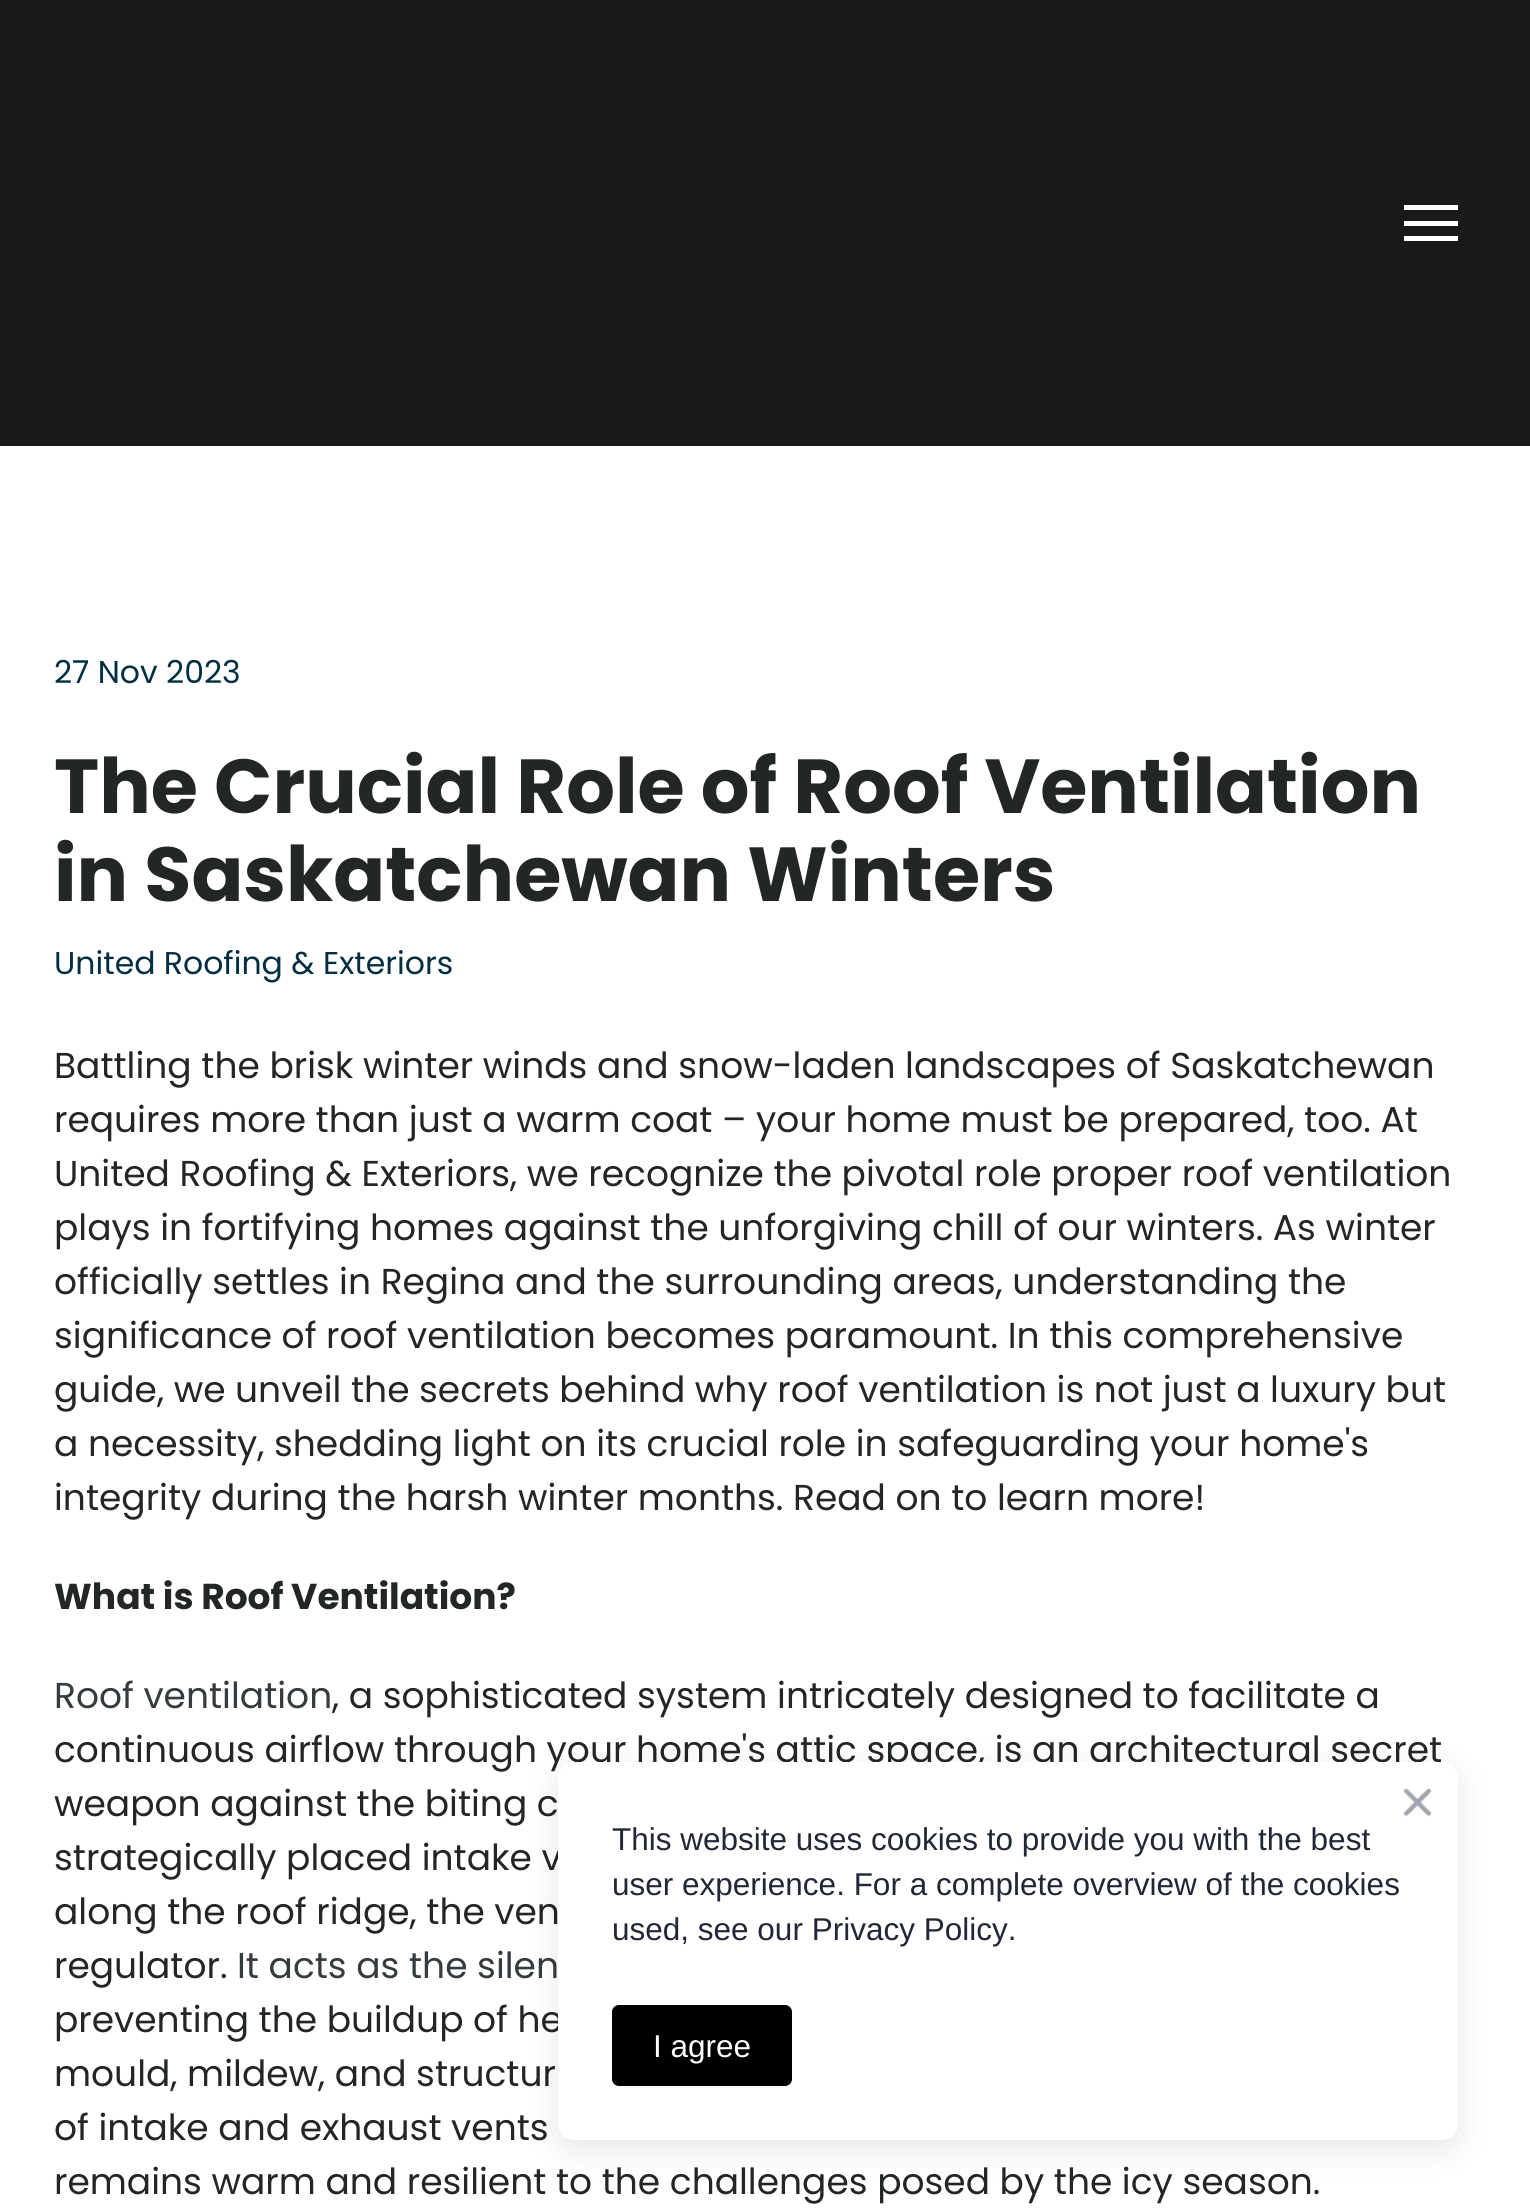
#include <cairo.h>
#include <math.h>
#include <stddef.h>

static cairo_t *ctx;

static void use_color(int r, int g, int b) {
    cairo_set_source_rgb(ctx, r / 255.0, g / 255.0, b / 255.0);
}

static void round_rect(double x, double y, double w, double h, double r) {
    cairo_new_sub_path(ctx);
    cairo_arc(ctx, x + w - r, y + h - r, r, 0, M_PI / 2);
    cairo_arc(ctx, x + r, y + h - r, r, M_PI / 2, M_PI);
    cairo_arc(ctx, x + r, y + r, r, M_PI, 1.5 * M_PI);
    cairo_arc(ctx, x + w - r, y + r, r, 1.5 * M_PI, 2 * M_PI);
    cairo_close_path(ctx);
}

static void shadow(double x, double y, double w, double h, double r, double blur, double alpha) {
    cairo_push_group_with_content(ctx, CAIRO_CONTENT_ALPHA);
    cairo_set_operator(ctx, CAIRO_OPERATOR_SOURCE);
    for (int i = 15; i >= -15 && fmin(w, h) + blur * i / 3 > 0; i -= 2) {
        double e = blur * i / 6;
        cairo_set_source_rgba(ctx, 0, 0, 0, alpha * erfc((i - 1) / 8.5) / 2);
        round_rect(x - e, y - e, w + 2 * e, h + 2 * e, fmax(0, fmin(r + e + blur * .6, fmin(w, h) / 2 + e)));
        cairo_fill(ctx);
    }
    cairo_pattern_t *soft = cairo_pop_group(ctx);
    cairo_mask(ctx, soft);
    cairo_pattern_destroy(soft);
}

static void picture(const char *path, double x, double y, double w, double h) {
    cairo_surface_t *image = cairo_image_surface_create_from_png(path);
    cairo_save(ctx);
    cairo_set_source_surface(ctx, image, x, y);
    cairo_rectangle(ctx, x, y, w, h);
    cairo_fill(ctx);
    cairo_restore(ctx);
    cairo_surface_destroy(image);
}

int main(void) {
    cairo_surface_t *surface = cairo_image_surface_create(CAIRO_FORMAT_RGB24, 1530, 2211);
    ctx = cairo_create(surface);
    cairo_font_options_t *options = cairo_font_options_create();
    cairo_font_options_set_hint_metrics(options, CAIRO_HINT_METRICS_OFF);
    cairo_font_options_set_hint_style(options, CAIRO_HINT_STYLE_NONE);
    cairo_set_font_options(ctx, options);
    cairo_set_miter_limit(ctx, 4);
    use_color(255, 255, 255);
    cairo_paint(ctx);
    use_color(25, 25, 25);
    cairo_rectangle(ctx, 0, 0, 1530, 446);
    cairo_fill(ctx);
    use_color(255, 255, 255);
    cairo_rectangle(ctx, 1404, 205, 54, 5);
    cairo_fill(ctx);
    cairo_rectangle(ctx, 1404, 221, 54, 5);
    cairo_fill(ctx);
    cairo_rectangle(ctx, 1404, 236, 54, 5);
    cairo_fill(ctx);
    cairo_select_font_face(ctx, "Poppins", CAIRO_FONT_SLANT_NORMAL, CAIRO_FONT_WEIGHT_NORMAL);
    cairo_set_font_size(ctx, 31.5);
    use_color(1, 46, 64);
    cairo_move_to(ctx, 54, 683);
    cairo_show_text(ctx, "27 Nov 2023");
    cairo_select_font_face(ctx, "Poppins", CAIRO_FONT_SLANT_NORMAL, CAIRO_FONT_WEIGHT_BOLD);
    cairo_set_font_size(ctx, 76.5);
    use_color(35, 38, 38);
    cairo_move_to(ctx, 54, 813);
    cairo_show_text(ctx, "The Crucial Role of Roof Ventilation");
    cairo_move_to(ctx, 54, 901);
    cairo_show_text(ctx, "in Saskatchewan Winters");
    cairo_select_font_face(ctx, "Poppins", CAIRO_FONT_SLANT_NORMAL, CAIRO_FONT_WEIGHT_NORMAL);
    cairo_set_font_size(ctx, 31.5);
    use_color(1, 46, 64);
    cairo_move_to(ctx, 54, 974);
    cairo_show_text(ctx, "United Roofing & Exteriors");
    cairo_set_font_size(ctx, 36);
    use_color(35, 38, 38);
    cairo_move_to(ctx, 54, 1078);
    cairo_show_text(ctx, "Battling the brisk winter winds and snow-laden landscapes of Saskatchewan");
    cairo_move_to(ctx, 54, 1132);
    cairo_show_text(ctx, "requires more than just a warm coat – your home must be prepared, too. At");
    cairo_move_to(ctx, 54, 1186);
    cairo_show_text(ctx, "United Roofing & Exteriors, we recognize the pivotal role proper roof ventilation");
    cairo_move_to(ctx, 54, 1240);
    cairo_show_text(ctx, "plays in fortifying homes against the unforgiving chill of our winters. As winter");
    cairo_move_to(ctx, 54, 1294);
    cairo_show_text(ctx, "officially settles in Regina and the surrounding areas, understanding the");
    cairo_move_to(ctx, 54, 1348);
    cairo_show_text(ctx, "significance of roof ventilation becomes paramount. In this comprehensive");
    cairo_move_to(ctx, 54, 1402);
    cairo_show_text(ctx, "guide, we unveil the secrets behind why roof ventilation is not just a luxury but");
    cairo_move_to(ctx, 54, 1456);
    cairo_show_text(ctx, "a necessity, shedding light on its crucial role in safeguarding your home's");
    cairo_move_to(ctx, 54, 1510);
    cairo_show_text(ctx, "integrity during the harsh winter months. Read on to learn more!");
    cairo_select_font_face(ctx, "Poppins", CAIRO_FONT_SLANT_NORMAL, CAIRO_FONT_WEIGHT_BOLD);
    cairo_move_to(ctx, 54, 1609);
    cairo_show_text(ctx, "What is Roof Ventilation?");
    cairo_select_font_face(ctx, "Poppins", CAIRO_FONT_SLANT_NORMAL, CAIRO_FONT_WEIGHT_NORMAL);
    use_color(53, 60, 63);
    cairo_move_to(ctx, 54, 1708);
    cairo_show_text(ctx, "Roof ventilation");
    use_color(35, 38, 38);
    cairo_move_to(ctx, 332, 1708);
    cairo_show_text(ctx, ", a sophisticated system intricately designed to facilitate a");
    cairo_move_to(ctx, 54, 1762);
    cairo_show_text(ctx, "continuous airflow through your home's attic space, is an architectural secret");
    cairo_move_to(ctx, 54, 1816);
    cairo_show_text(ctx, "weapon against the biting c");
    cairo_move_to(ctx, 54, 1870);
    cairo_show_text(ctx, "strategically placed intake v");
    cairo_move_to(ctx, 54, 1924);
    cairo_show_text(ctx, "along the roof ridge, the ven");
    cairo_move_to(ctx, 54, 1978);
    cairo_show_text(ctx, "regulator.");
    use_color(53, 60, 63);
    cairo_move_to(ctx, 237, 1978);
    cairo_show_text(ctx, "It acts as the silen");
    use_color(35, 38, 38);
    cairo_move_to(ctx, 54, 2032);
    cairo_show_text(ctx, "preventing the buildup of he");
    cairo_move_to(ctx, 54, 2086);
    cairo_show_text(ctx, "mould, mildew, and structur");
    cairo_move_to(ctx, 54, 2140);
    cairo_show_text(ctx, "of intake and exhaust vents");
    cairo_move_to(ctx, 54, 2194);
    cairo_show_text(ctx, "remains warm and resilient to the challenges posed by the icy season.");
    use_color(0, 0, 0);
    shadow(558, 1771, 900, 378, 16, 16, 0.1);
    use_color(255, 255, 255);
    round_rect(558, 1762, 900, 378, 16);
    cairo_fill(ctx);
    picture("img1.png", 1403, 1788, 29, 29);
    cairo_select_font_face(ctx, "Liberation Sans", CAIRO_FONT_SLANT_NORMAL, CAIRO_FONT_WEIGHT_NORMAL);
    cairo_set_font_size(ctx, 31.5);
    use_color(33, 39, 54);
    cairo_move_to(ctx, 612, 1850);
    cairo_show_text(ctx, "This website uses cookies to provide you with the best");
    cairo_move_to(ctx, 612, 1895);
    cairo_show_text(ctx, "user experience. For a complete overview of the cookies");
    cairo_move_to(ctx, 612, 1940);
    cairo_show_text(ctx, "used, see our Privacy Policy.");
    use_color(0, 0, 0);
    round_rect(612, 2005, 180, 81, 7);
    cairo_fill(ctx);
    use_color(255, 255, 255);
    cairo_move_to(ctx, 653, 2057);
    cairo_show_text(ctx, "I agree");
    cairo_surface_write_to_png(surface, "result.png");
    cairo_font_options_destroy(options);
    cairo_destroy(ctx);
    cairo_surface_destroy(surface);
    return 0;
}
